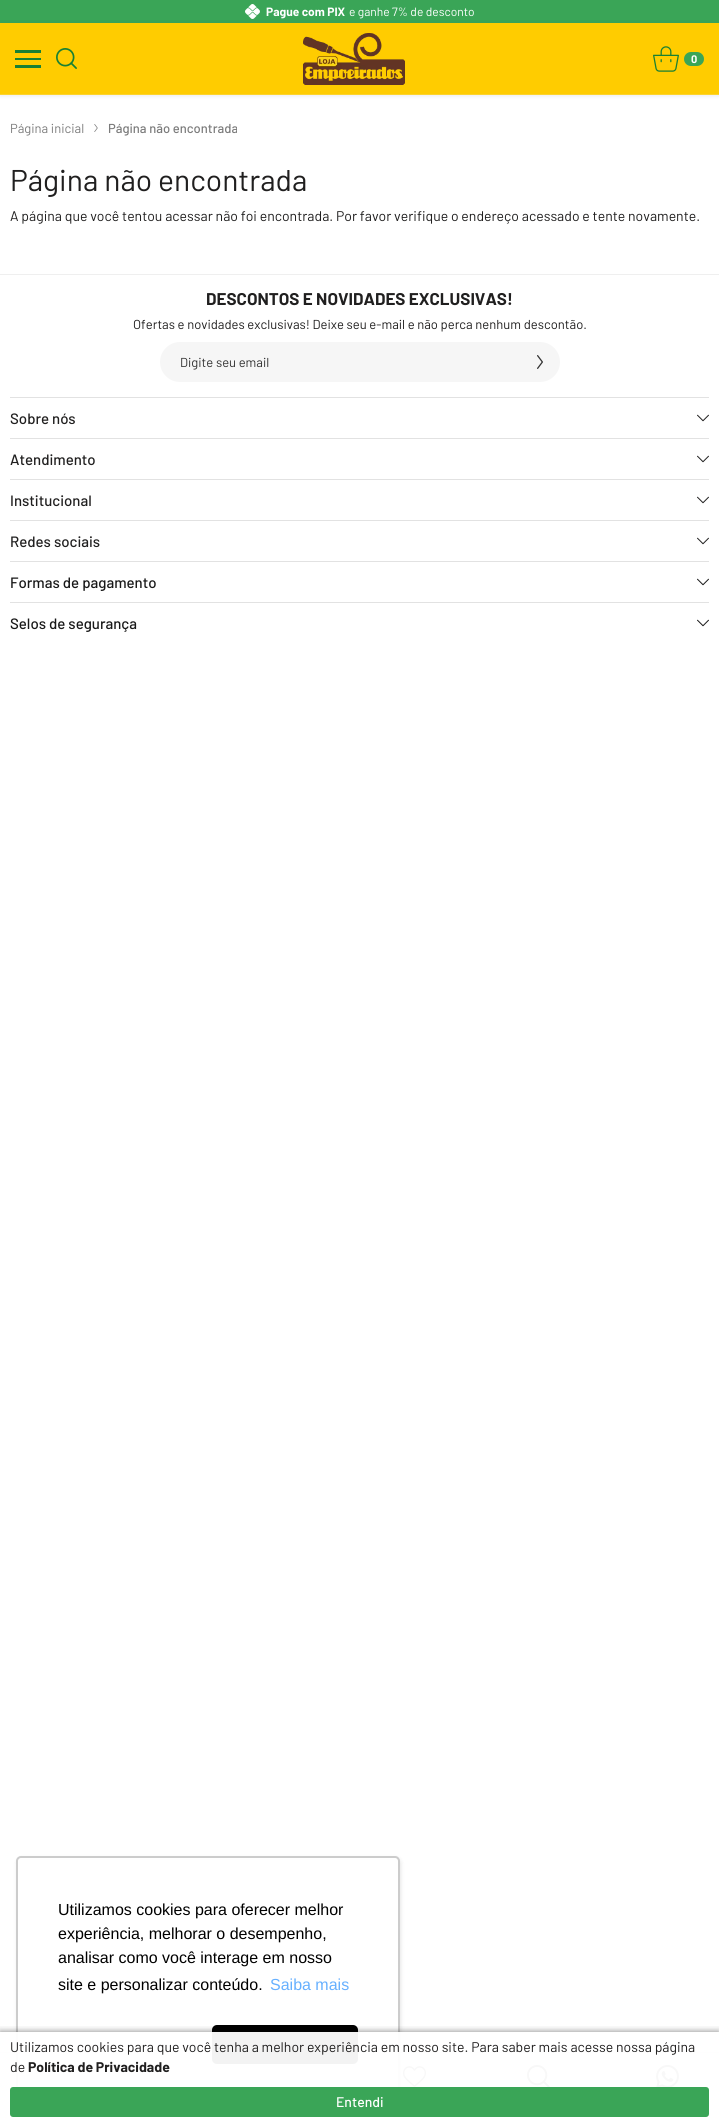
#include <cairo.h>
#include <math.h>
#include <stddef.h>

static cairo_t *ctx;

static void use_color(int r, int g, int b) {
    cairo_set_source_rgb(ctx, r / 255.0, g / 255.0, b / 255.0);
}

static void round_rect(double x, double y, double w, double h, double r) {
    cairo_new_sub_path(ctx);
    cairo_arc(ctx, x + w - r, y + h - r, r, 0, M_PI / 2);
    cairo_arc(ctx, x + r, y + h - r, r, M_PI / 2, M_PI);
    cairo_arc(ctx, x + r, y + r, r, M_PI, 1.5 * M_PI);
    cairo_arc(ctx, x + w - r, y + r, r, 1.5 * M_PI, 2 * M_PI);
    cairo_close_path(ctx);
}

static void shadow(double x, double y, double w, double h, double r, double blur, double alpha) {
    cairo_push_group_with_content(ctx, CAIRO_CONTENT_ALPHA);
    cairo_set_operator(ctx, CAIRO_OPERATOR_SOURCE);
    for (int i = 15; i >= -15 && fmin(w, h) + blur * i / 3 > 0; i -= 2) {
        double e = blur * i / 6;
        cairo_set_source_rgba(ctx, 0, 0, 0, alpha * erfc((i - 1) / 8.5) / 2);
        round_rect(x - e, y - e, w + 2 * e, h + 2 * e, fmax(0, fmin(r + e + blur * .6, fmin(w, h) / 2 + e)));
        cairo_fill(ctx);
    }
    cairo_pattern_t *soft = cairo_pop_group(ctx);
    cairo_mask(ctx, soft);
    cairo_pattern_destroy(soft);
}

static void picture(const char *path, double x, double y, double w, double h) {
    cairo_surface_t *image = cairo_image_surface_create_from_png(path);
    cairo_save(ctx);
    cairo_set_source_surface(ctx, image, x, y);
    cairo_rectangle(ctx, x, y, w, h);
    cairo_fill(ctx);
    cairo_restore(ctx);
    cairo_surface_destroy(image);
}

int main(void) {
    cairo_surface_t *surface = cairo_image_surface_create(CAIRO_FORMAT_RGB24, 719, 2122);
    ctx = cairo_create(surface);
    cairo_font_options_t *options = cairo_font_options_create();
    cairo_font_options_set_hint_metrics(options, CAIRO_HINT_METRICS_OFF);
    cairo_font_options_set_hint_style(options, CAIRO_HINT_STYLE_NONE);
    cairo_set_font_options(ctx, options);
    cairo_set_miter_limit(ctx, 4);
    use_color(255, 255, 255);
    cairo_paint(ctx);
    use_color(58, 165, 87);
    cairo_rectangle(ctx, 0, 0, 719, 23);
    cairo_fill(ctx);
    picture("img1.png", 245, 4, 15, 15);
    cairo_select_font_face(ctx, "Barlow", CAIRO_FONT_SLANT_NORMAL, CAIRO_FONT_WEIGHT_BOLD);
    cairo_set_font_size(ctx, 12);
    use_color(255, 255, 255);
    cairo_move_to(ctx, 266, 16);
    cairo_show_text(ctx, "Pague com PIX");
    cairo_select_font_face(ctx, "Barlow", CAIRO_FONT_SLANT_NORMAL, CAIRO_FONT_WEIGHT_NORMAL);
    cairo_move_to(ctx, 349, 16);
    cairo_show_text(ctx, "e ganhe 7% de desconto");
    use_color(82, 82, 82);
    shadow(0, 24, 719, 72, 0, 2, 0.13);
    use_color(255, 204, 0);
    cairo_rectangle(ctx, 0, 23, 719, 71);
    cairo_fill(ctx);
    use_color(252, 211, 45);
    cairo_rectangle(ctx, 0, 94, 719, 1);
    cairo_fill(ctx);
    use_color(24, 128, 52);
    cairo_rectangle(ctx, 15, 65, 26, 3);
    cairo_fill(ctx);
    cairo_rectangle(ctx, 15, 58, 26, 2);
    cairo_fill(ctx);
    cairo_rectangle(ctx, 15, 50, 26, 3);
    cairo_fill(ctx);
    picture("img2.png", 56, 48, 21, 21);
    picture("img3.png", 303, 33, 102, 52);
    picture("img4.png", 653, 46, 26, 26);
    use_color(58, 165, 87);
    round_rect(684, 52, 20, 14, 7);
    cairo_fill(ctx);
    cairo_select_font_face(ctx, "Barlow", CAIRO_FONT_SLANT_NORMAL, CAIRO_FONT_WEIGHT_BOLD);
    cairo_set_font_size(ctx, 11);
    use_color(255, 255, 255);
    cairo_move_to(ctx, 691, 63);
    cairo_show_text(ctx, "0");
    cairo_select_font_face(ctx, "Barlow", CAIRO_FONT_SLANT_NORMAL, CAIRO_FONT_WEIGHT_NORMAL);
    cairo_set_font_size(ctx, 13);
    use_color(123, 123, 123);
    cairo_move_to(ctx, 10, 133);
    cairo_show_text(ctx, "Página inicial");
    picture("img5.png", 94, 124, 4, 8);
    cairo_select_font_face(ctx, "Barlow Medium", CAIRO_FONT_SLANT_NORMAL, CAIRO_FONT_WEIGHT_NORMAL);
    cairo_move_to(ctx, 108, 133);
    cairo_show_text(ctx, "Página não encontrada");
    cairo_select_font_face(ctx, "Barlow", CAIRO_FONT_SLANT_NORMAL, CAIRO_FONT_WEIGHT_NORMAL);
    cairo_set_font_size(ctx, 30);
    use_color(32, 31, 31);
    cairo_move_to(ctx, 10, 191);
    cairo_show_text(ctx, "Página não encontrada");
    cairo_set_font_size(ctx, 14);
    cairo_move_to(ctx, 10, 221);
    cairo_show_text(ctx, "A página que você tentou acessar não foi encontrada. Por favor verifique o endereço acessado e tente novamente.");
    use_color(239, 239, 239);
    cairo_rectangle(ctx, 0, 274, 719, 1);
    cairo_fill(ctx);
    cairo_select_font_face(ctx, "Barlow", CAIRO_FONT_SLANT_NORMAL, CAIRO_FONT_WEIGHT_BOLD);
    cairo_set_font_size(ctx, 17);
    use_color(32, 31, 31);
    cairo_move_to(ctx, 206, 305);
    cairo_show_text(ctx, "DESCONTOS E NOVIDADES EXCLUSIVAS!");
    cairo_select_font_face(ctx, "Barlow", CAIRO_FONT_SLANT_NORMAL, CAIRO_FONT_WEIGHT_NORMAL);
    cairo_set_font_size(ctx, 13);
    cairo_move_to(ctx, 133, 329);
    cairo_show_text(ctx, "Ofertas e novidades exclusivas! Deixe seu e-mail e não perca nenhum descontão.");
    use_color(246, 246, 246);
    round_rect(160, 342, 400, 40, 20);
    cairo_fill(ctx);
    use_color(50, 50, 50);
    cairo_move_to(ctx, 180, 367);
    cairo_show_text(ctx, "Digite seu email");
    picture("img6.png", 537, 355, 6, 14);
    use_color(226, 226, 226);
    cairo_rectangle(ctx, 10, 397, 699, 1);
    cairo_fill(ctx);
    cairo_select_font_face(ctx, "Barlow Medium", CAIRO_FONT_SLANT_NORMAL, CAIRO_FONT_WEIGHT_NORMAL);
    cairo_set_font_size(ctx, 15);
    use_color(32, 31, 31);
    cairo_move_to(ctx, 10, 424);
    cairo_show_text(ctx, "Sobre nós");
    picture("img7.png", 697, 414, 12, 8);
    use_color(226, 226, 226);
    cairo_rectangle(ctx, 10, 438, 699, 1);
    cairo_fill(ctx);
    use_color(32, 31, 31);
    cairo_move_to(ctx, 10, 465);
    cairo_show_text(ctx, "Atendimento");
    picture("img7.png", 697, 455, 12, 8);
    use_color(226, 226, 226);
    cairo_rectangle(ctx, 10, 479, 699, 1);
    cairo_fill(ctx);
    use_color(32, 31, 31);
    cairo_move_to(ctx, 10, 506);
    cairo_show_text(ctx, "Institucional");
    picture("img7.png", 697, 496, 12, 8);
    use_color(226, 226, 226);
    cairo_rectangle(ctx, 10, 520, 699, 1);
    cairo_fill(ctx);
    use_color(32, 31, 31);
    cairo_move_to(ctx, 10, 547);
    cairo_show_text(ctx, "Redes sociais");
    picture("img7.png", 697, 537, 12, 8);
    use_color(226, 226, 226);
    cairo_rectangle(ctx, 10, 561, 699, 1);
    cairo_fill(ctx);
    use_color(24, 24, 24);
    cairo_move_to(ctx, 10, 588);
    cairo_show_text(ctx, "Formas de pagamento");
    picture("img8.png", 697, 578, 12, 8);
    use_color(226, 226, 226);
    cairo_rectangle(ctx, 10, 602, 699, 1);
    cairo_fill(ctx);
    use_color(24, 24, 24);
    cairo_move_to(ctx, 10, 629);
    cairo_show_text(ctx, "Selos de segurança");
    picture("img8.png", 697, 619, 12, 8);
    use_color(226, 226, 226);
    cairo_rectangle(ctx, 0, 2052, 719, 1);
    cairo_fill(ctx);
    picture("img9.png", 403, 2066, 23, 21);
    use_color(0, 0, 0);
    shadow(17, 1858, 384, 250, 5, 2, 0.1);
    use_color(255, 255, 255);
    round_rect(16, 1856, 384, 250, 5);
    cairo_fill(ctx);
    round_rect(17, 1857, 382, 248, 4);
    cairo_set_source_rgba(ctx, 0, 0, 0, 0.2);
    cairo_stroke(ctx);
    cairo_select_font_face(ctx, "Liberation Sans", CAIRO_FONT_SLANT_NORMAL, CAIRO_FONT_WEIGHT_NORMAL);
    cairo_set_font_size(ctx, 16);
    use_color(0, 0, 0);
    cairo_move_to(ctx, 58, 1915);
    cairo_show_text(ctx, "Utilizamos cookies para oferecer melhor");
    cairo_move_to(ctx, 58, 1939);
    cairo_show_text(ctx, "experiência, melhorar o desempenho,");
    cairo_move_to(ctx, 58, 1963);
    cairo_show_text(ctx, "analisar como você interage em nosso");
    cairo_move_to(ctx, 58, 1990);
    cairo_show_text(ctx, "site e personalizar conteúdo.");
    use_color(102, 176, 255);
    cairo_move_to(ctx, 270, 1990);
    cairo_show_text(ctx, "Saiba mais");
    use_color(0, 0, 0);
    round_rect(212, 2025, 146, 39, 5);
    cairo_fill(ctx);
    picture("img10.png", 527, 2065, 23, 22);
    picture("img11.png", 656, 2065, 23, 22);
    cairo_save(ctx);
    cairo_rectangle(ctx, 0, 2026, 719, 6);
    cairo_clip(ctx);
    use_color(0, 0, 0);
    shadow(0, 2032, 719, 90, 0, 3.5, 0.5);
    cairo_restore(ctx);
    cairo_set_source_rgba(ctx, 1, 1, 1, 0.95);
    cairo_rectangle(ctx, 0, 2032, 719, 78);
    cairo_fill(ctx);
    cairo_select_font_face(ctx, "Barlow", CAIRO_FONT_SLANT_NORMAL, CAIRO_FONT_WEIGHT_NORMAL);
    cairo_set_font_size(ctx, 14);
    use_color(32, 31, 31);
    cairo_move_to(ctx, 10, 2052);
    cairo_show_text(ctx, "Utilizamos cookies para que você tenha a melhor experiência em nosso site. Para saber mais acesse nossa página");
    cairo_move_to(ctx, 10, 2072);
    cairo_show_text(ctx, "de");
    cairo_select_font_face(ctx, "Barlow", CAIRO_FONT_SLANT_NORMAL, CAIRO_FONT_WEIGHT_BOLD);
    cairo_move_to(ctx, 28, 2072);
    cairo_show_text(ctx, "Política de Privacidade");
    use_color(58, 165, 87);
    round_rect(10, 2087, 699, 30, 3);
    cairo_fill(ctx);
    cairo_select_font_face(ctx, "Barlow Medium", CAIRO_FONT_SLANT_NORMAL, CAIRO_FONT_WEIGHT_NORMAL);
    use_color(255, 255, 255);
    cairo_move_to(ctx, 336, 2107);
    cairo_show_text(ctx, "Entendi");
    cairo_surface_write_to_png(surface, "result.png");
    cairo_font_options_destroy(options);
    cairo_destroy(ctx);
    cairo_surface_destroy(surface);
    return 0;
}
